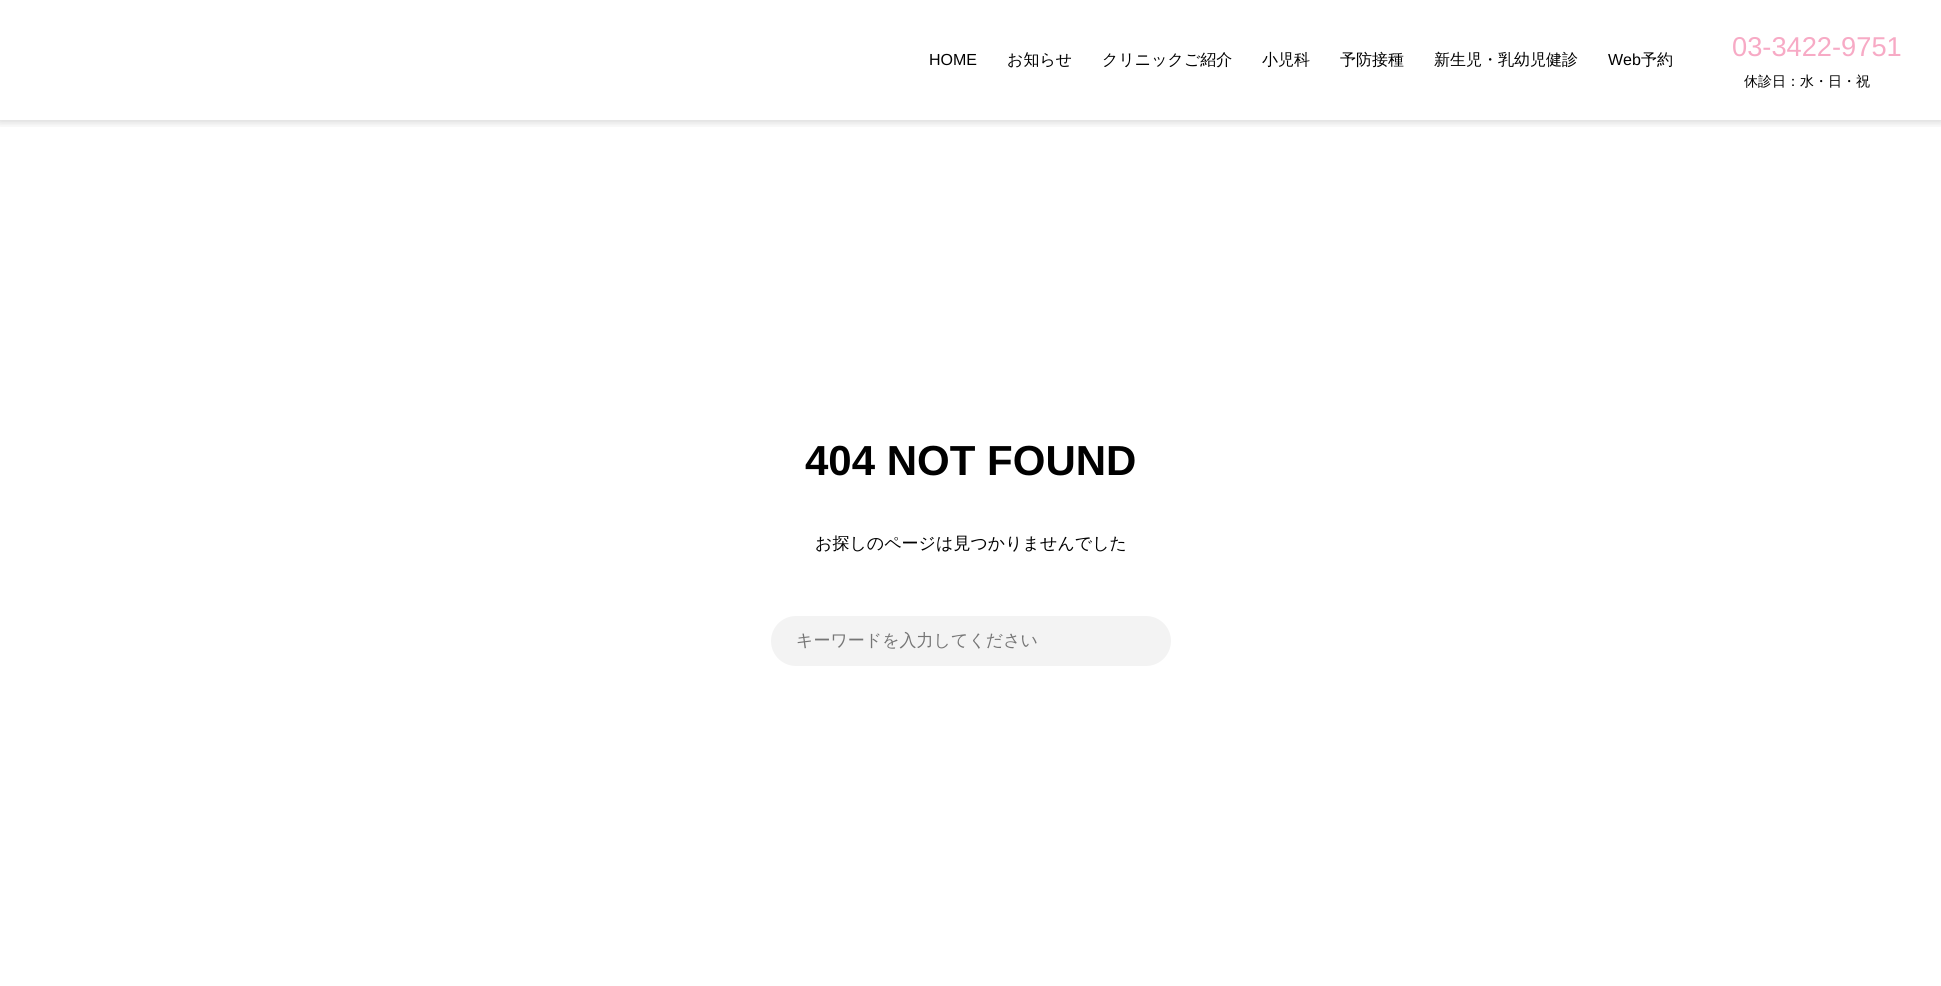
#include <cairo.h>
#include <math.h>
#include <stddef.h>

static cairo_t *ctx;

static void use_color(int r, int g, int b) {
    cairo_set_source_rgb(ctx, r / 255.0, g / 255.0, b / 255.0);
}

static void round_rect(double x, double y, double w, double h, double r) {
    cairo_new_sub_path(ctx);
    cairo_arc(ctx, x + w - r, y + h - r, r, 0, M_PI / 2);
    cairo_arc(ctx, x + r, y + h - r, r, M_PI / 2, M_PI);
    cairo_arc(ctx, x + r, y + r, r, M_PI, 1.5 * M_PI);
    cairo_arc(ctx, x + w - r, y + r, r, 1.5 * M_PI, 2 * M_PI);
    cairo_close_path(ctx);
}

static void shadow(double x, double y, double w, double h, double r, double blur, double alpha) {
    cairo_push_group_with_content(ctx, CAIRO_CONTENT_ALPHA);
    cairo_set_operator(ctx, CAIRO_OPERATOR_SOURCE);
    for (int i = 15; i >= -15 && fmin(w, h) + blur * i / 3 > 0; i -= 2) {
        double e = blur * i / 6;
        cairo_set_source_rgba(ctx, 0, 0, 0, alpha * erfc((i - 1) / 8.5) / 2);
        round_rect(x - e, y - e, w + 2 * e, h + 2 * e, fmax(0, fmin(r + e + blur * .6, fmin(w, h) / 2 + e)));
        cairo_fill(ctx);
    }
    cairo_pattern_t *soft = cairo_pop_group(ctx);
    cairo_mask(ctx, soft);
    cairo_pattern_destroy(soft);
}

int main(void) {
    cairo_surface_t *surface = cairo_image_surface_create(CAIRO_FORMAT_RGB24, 1941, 986);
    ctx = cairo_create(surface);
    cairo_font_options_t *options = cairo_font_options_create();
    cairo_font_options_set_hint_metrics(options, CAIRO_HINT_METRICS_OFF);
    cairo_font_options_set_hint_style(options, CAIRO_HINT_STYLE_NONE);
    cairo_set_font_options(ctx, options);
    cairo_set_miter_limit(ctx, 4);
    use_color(255, 255, 255);
    cairo_paint(ctx);
    cairo_save(ctx);
    cairo_rectangle(ctx, 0, 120, 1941, 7);
    cairo_clip(ctx);
    use_color(0, 0, 0);
    shadow(-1, -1, 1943, 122, 0, 5, 0.2);
    cairo_restore(ctx);
    cairo_select_font_face(ctx, "Liberation Sans", CAIRO_FONT_SLANT_NORMAL, CAIRO_FONT_WEIGHT_NORMAL);
    cairo_set_font_size(ctx, 16);
    use_color(0, 0, 0);
    cairo_move_to(ctx, 929, 65);
    cairo_show_text(ctx, "HOME");
    cairo_select_font_face(ctx, "WenQuanYi Zen Hei Medium", CAIRO_FONT_SLANT_NORMAL, CAIRO_FONT_WEIGHT_NORMAL);
    cairo_move_to(ctx, 1007, 65);
    cairo_show_text(ctx, "お知らせ");
    cairo_move_to(ctx, 1102, 65);
    cairo_show_text(ctx, "クリニックご紹介");
    cairo_move_to(ctx, 1262, 65);
    cairo_show_text(ctx, "小児科");
    cairo_move_to(ctx, 1340, 65);
    cairo_show_text(ctx, "予防接種");
    cairo_move_to(ctx, 1434, 65);
    cairo_show_text(ctx, "新生児・乳幼児健診");
    cairo_select_font_face(ctx, "Liberation Sans", CAIRO_FONT_SLANT_NORMAL, CAIRO_FONT_WEIGHT_NORMAL);
    cairo_move_to(ctx, 1608, 65);
    cairo_show_text(ctx, "Web");
    cairo_select_font_face(ctx, "WenQuanYi Zen Hei Medium", CAIRO_FONT_SLANT_NORMAL, CAIRO_FONT_WEIGHT_NORMAL);
    cairo_move_to(ctx, 1641, 65);
    cairo_show_text(ctx, "予約");
    cairo_select_font_face(ctx, "Liberation Sans", CAIRO_FONT_SLANT_NORMAL, CAIRO_FONT_WEIGHT_NORMAL);
    cairo_set_font_size(ctx, 27.25);
    use_color(247, 170, 197);
    cairo_move_to(ctx, 1732, 56);
    cairo_show_text(ctx, "03-3422-9751");
    cairo_select_font_face(ctx, "WenQuanYi Zen Hei Medium", CAIRO_FONT_SLANT_NORMAL, CAIRO_FONT_WEIGHT_NORMAL);
    cairo_set_font_size(ctx, 14);
    use_color(0, 0, 0);
    cairo_move_to(ctx, 1744, 86);
    cairo_show_text(ctx, "休診日：水・日・祝");
    cairo_select_font_face(ctx, "Liberation Sans", CAIRO_FONT_SLANT_NORMAL, CAIRO_FONT_WEIGHT_BOLD);
    cairo_set_font_size(ctx, 42);
    cairo_move_to(ctx, 805, 475);
    cairo_show_text(ctx, "404 NOT FOUND");
    cairo_select_font_face(ctx, "WenQuanYi Zen Hei Medium", CAIRO_FONT_SLANT_NORMAL, CAIRO_FONT_WEIGHT_NORMAL);
    cairo_set_font_size(ctx, 17);
    cairo_move_to(ctx, 815, 549);
    cairo_show_text(ctx, "お探しのページは見つかりませんでした");
    use_color(243, 243, 243);
    round_rect(771, 616, 400, 50, 25);
    cairo_fill(ctx);
    use_color(117, 117, 117);
    cairo_move_to(ctx, 796, 646);
    cairo_show_text(ctx, "キーワードを入力してください");
    cairo_surface_write_to_png(surface, "result.png");
    cairo_font_options_destroy(options);
    cairo_destroy(ctx);
    cairo_surface_destroy(surface);
    return 0;
}
